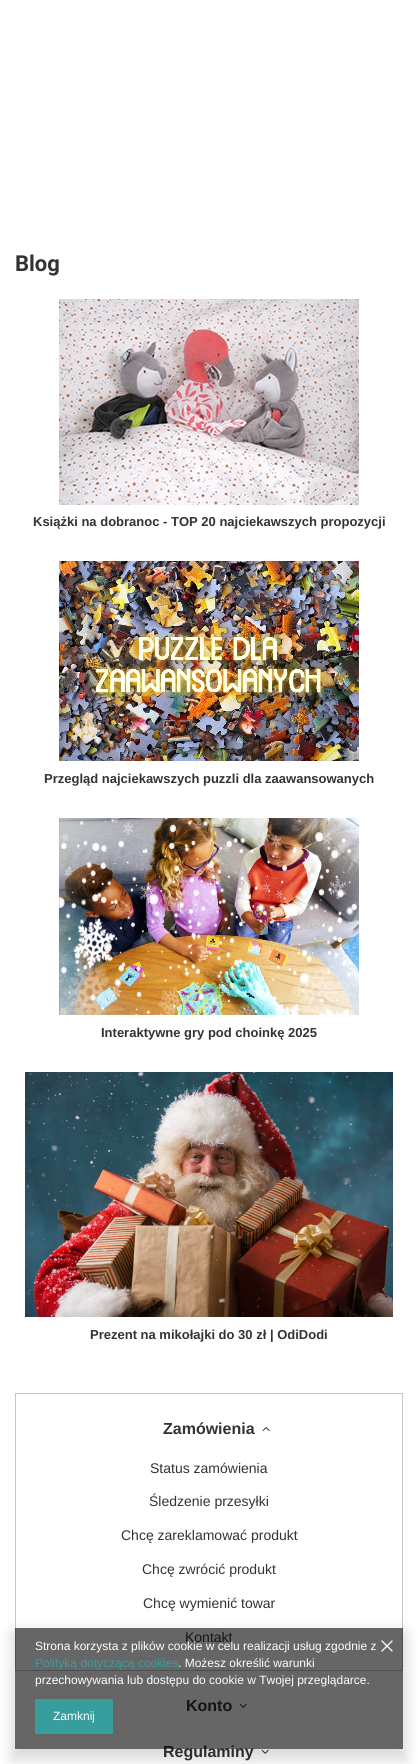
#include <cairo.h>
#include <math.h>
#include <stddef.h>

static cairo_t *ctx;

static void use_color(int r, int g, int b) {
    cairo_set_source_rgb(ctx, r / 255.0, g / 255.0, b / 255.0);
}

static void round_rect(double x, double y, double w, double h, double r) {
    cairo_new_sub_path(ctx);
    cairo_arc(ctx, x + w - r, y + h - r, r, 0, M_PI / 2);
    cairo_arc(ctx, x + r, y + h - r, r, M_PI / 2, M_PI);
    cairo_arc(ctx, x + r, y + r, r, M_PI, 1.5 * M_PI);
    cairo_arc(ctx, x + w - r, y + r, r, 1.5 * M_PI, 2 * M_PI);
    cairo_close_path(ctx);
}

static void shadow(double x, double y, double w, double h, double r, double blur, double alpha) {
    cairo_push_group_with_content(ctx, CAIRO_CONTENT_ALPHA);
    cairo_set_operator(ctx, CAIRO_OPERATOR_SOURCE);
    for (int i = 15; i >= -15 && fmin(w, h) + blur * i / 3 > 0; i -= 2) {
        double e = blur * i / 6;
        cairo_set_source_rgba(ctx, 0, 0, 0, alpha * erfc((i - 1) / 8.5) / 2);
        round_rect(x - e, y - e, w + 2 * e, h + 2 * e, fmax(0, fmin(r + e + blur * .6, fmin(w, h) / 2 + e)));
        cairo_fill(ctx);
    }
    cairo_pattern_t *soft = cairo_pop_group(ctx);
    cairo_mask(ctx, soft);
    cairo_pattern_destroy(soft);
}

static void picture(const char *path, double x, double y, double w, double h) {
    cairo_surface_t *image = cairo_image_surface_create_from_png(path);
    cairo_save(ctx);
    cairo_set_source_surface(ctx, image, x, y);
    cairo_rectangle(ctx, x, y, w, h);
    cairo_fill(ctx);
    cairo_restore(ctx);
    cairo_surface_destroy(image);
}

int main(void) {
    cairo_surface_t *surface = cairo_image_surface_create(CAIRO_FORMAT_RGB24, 418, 1764);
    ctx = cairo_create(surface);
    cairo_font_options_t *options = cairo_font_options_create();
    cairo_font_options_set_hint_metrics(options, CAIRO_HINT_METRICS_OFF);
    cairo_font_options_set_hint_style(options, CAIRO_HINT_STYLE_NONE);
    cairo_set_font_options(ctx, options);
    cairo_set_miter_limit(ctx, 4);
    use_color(255, 255, 255);
    cairo_paint(ctx);
    cairo_select_font_face(ctx, "Roboto", CAIRO_FONT_SLANT_NORMAL, CAIRO_FONT_WEIGHT_BOLD);
    cairo_set_font_size(ctx, 22);
    use_color(51, 51, 51);
    cairo_move_to(ctx, 15, 271);
    cairo_show_text(ctx, "Blog");
    picture("img1.png", 59, 299, 300, 206);
    cairo_select_font_face(ctx, "Liberation Sans", CAIRO_FONT_SLANT_NORMAL, CAIRO_FONT_WEIGHT_BOLD);
    cairo_set_font_size(ctx, 13);
    cairo_move_to(ctx, 33, 526);
    cairo_show_text(ctx, "Książki na dobranoc - TOP 20 najciekawszych propozycji");
    picture("img2.png", 59, 561, 300, 200);
    cairo_move_to(ctx, 44, 783);
    cairo_show_text(ctx, "Przegląd najciekawszych puzzli dla zaawansowanych");
    picture("img3.png", 59, 818, 300, 197);
    cairo_move_to(ctx, 101, 1037);
    cairo_show_text(ctx, "Interaktywne gry pod choinkę 2025");
    picture("img4.png", 25, 1072, 368, 245);
    cairo_move_to(ctx, 90, 1339);
    cairo_show_text(ctx, "Prezent na mikołajki do 30 zł | OdiDodi");
    cairo_rectangle(ctx, 15.5, 1393.5, 387, 277);
    use_color(196, 199, 200);
    cairo_set_line_width(ctx, 1);
    cairo_stroke(ctx);
    cairo_set_font_size(ctx, 16);
    use_color(51, 51, 51);
    cairo_move_to(ctx, 163, 1434);
    cairo_show_text(ctx, "Zamówienia");
    picture("img5.png", 262, 1427, 8, 5);
    cairo_select_font_face(ctx, "Liberation Sans", CAIRO_FONT_SLANT_NORMAL, CAIRO_FONT_WEIGHT_NORMAL);
    cairo_set_font_size(ctx, 14);
    cairo_move_to(ctx, 150, 1473);
    cairo_show_text(ctx, "Status zamówienia");
    cairo_move_to(ctx, 149, 1506);
    cairo_show_text(ctx, "Śledzenie przesyłki");
    cairo_move_to(ctx, 121, 1540);
    cairo_show_text(ctx, "Chcę zareklamować produkt");
    cairo_move_to(ctx, 142, 1574);
    cairo_show_text(ctx, "Chcę zwrócić produkt");
    cairo_move_to(ctx, 143, 1608);
    cairo_show_text(ctx, "Chcę wymienić towar");
    cairo_move_to(ctx, 185, 1642);
    cairo_show_text(ctx, "Kontakt");
    cairo_select_font_face(ctx, "Liberation Sans", CAIRO_FONT_SLANT_NORMAL, CAIRO_FONT_WEIGHT_BOLD);
    cairo_set_font_size(ctx, 16);
    cairo_move_to(ctx, 186, 1711);
    cairo_show_text(ctx, "Konto");
    picture("img6.png", 239, 1703, 8, 5);
    cairo_move_to(ctx, 163, 1757);
    cairo_show_text(ctx, "Regulaminy");
    picture("img6.png", 261, 1749, 8, 5);
    cairo_save(ctx);
    cairo_set_fill_rule(ctx, CAIRO_FILL_RULE_EVEN_ODD);
    cairo_new_path(ctx);
    cairo_move_to(ctx, 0, 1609);
    cairo_line_to(ctx, 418, 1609);
    cairo_line_to(ctx, 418, 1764);
    cairo_line_to(ctx, 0, 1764);
    cairo_close_path(ctx);
    cairo_move_to(ctx, 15, 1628);
    cairo_line_to(ctx, 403, 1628);
    cairo_line_to(ctx, 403, 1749);
    cairo_line_to(ctx, 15, 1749);
    cairo_close_path(ctx);
    cairo_clip(ctx);
    use_color(0, 0, 0);
    shadow(12, 1633, 394, 127, 0, 7.5, 0.15);
    cairo_restore(ctx);
    cairo_set_source_rgba(ctx, 0, 0, 0, 0.6);
    cairo_rectangle(ctx, 15, 1628, 388, 121);
    cairo_fill(ctx);
    cairo_select_font_face(ctx, "Liberation Sans", CAIRO_FONT_SLANT_NORMAL, CAIRO_FONT_WEIGHT_NORMAL);
    cairo_set_font_size(ctx, 12);
    use_color(255, 255, 255);
    cairo_move_to(ctx, 35, 1650);
    cairo_show_text(ctx, "Strona korzysta z plików cookie w celu realizacji usług zgodnie z");
    use_color(55, 158, 157);
    cairo_move_to(ctx, 35, 1667);
    cairo_show_text(ctx, "Polityką dotyczącą cookies");
    use_color(255, 255, 255);
    cairo_move_to(ctx, 178, 1667);
    cairo_show_text(ctx, ". Możesz określić warunki");
    cairo_move_to(ctx, 35, 1684);
    cairo_show_text(ctx, "przechowywania lub dostępu do cookie w Twojej przeglądarce.");
    use_color(55, 158, 157);
    cairo_rectangle(ctx, 35, 1699, 78, 35);
    cairo_fill(ctx);
    use_color(255, 255, 255);
    cairo_move_to(ctx, 53, 1720);
    cairo_show_text(ctx, "Zamknij");
    picture("img7.png", 381, 1640, 12, 12);
    cairo_surface_write_to_png(surface, "result.png");
    cairo_font_options_destroy(options);
    cairo_destroy(ctx);
    cairo_surface_destroy(surface);
    return 0;
}
